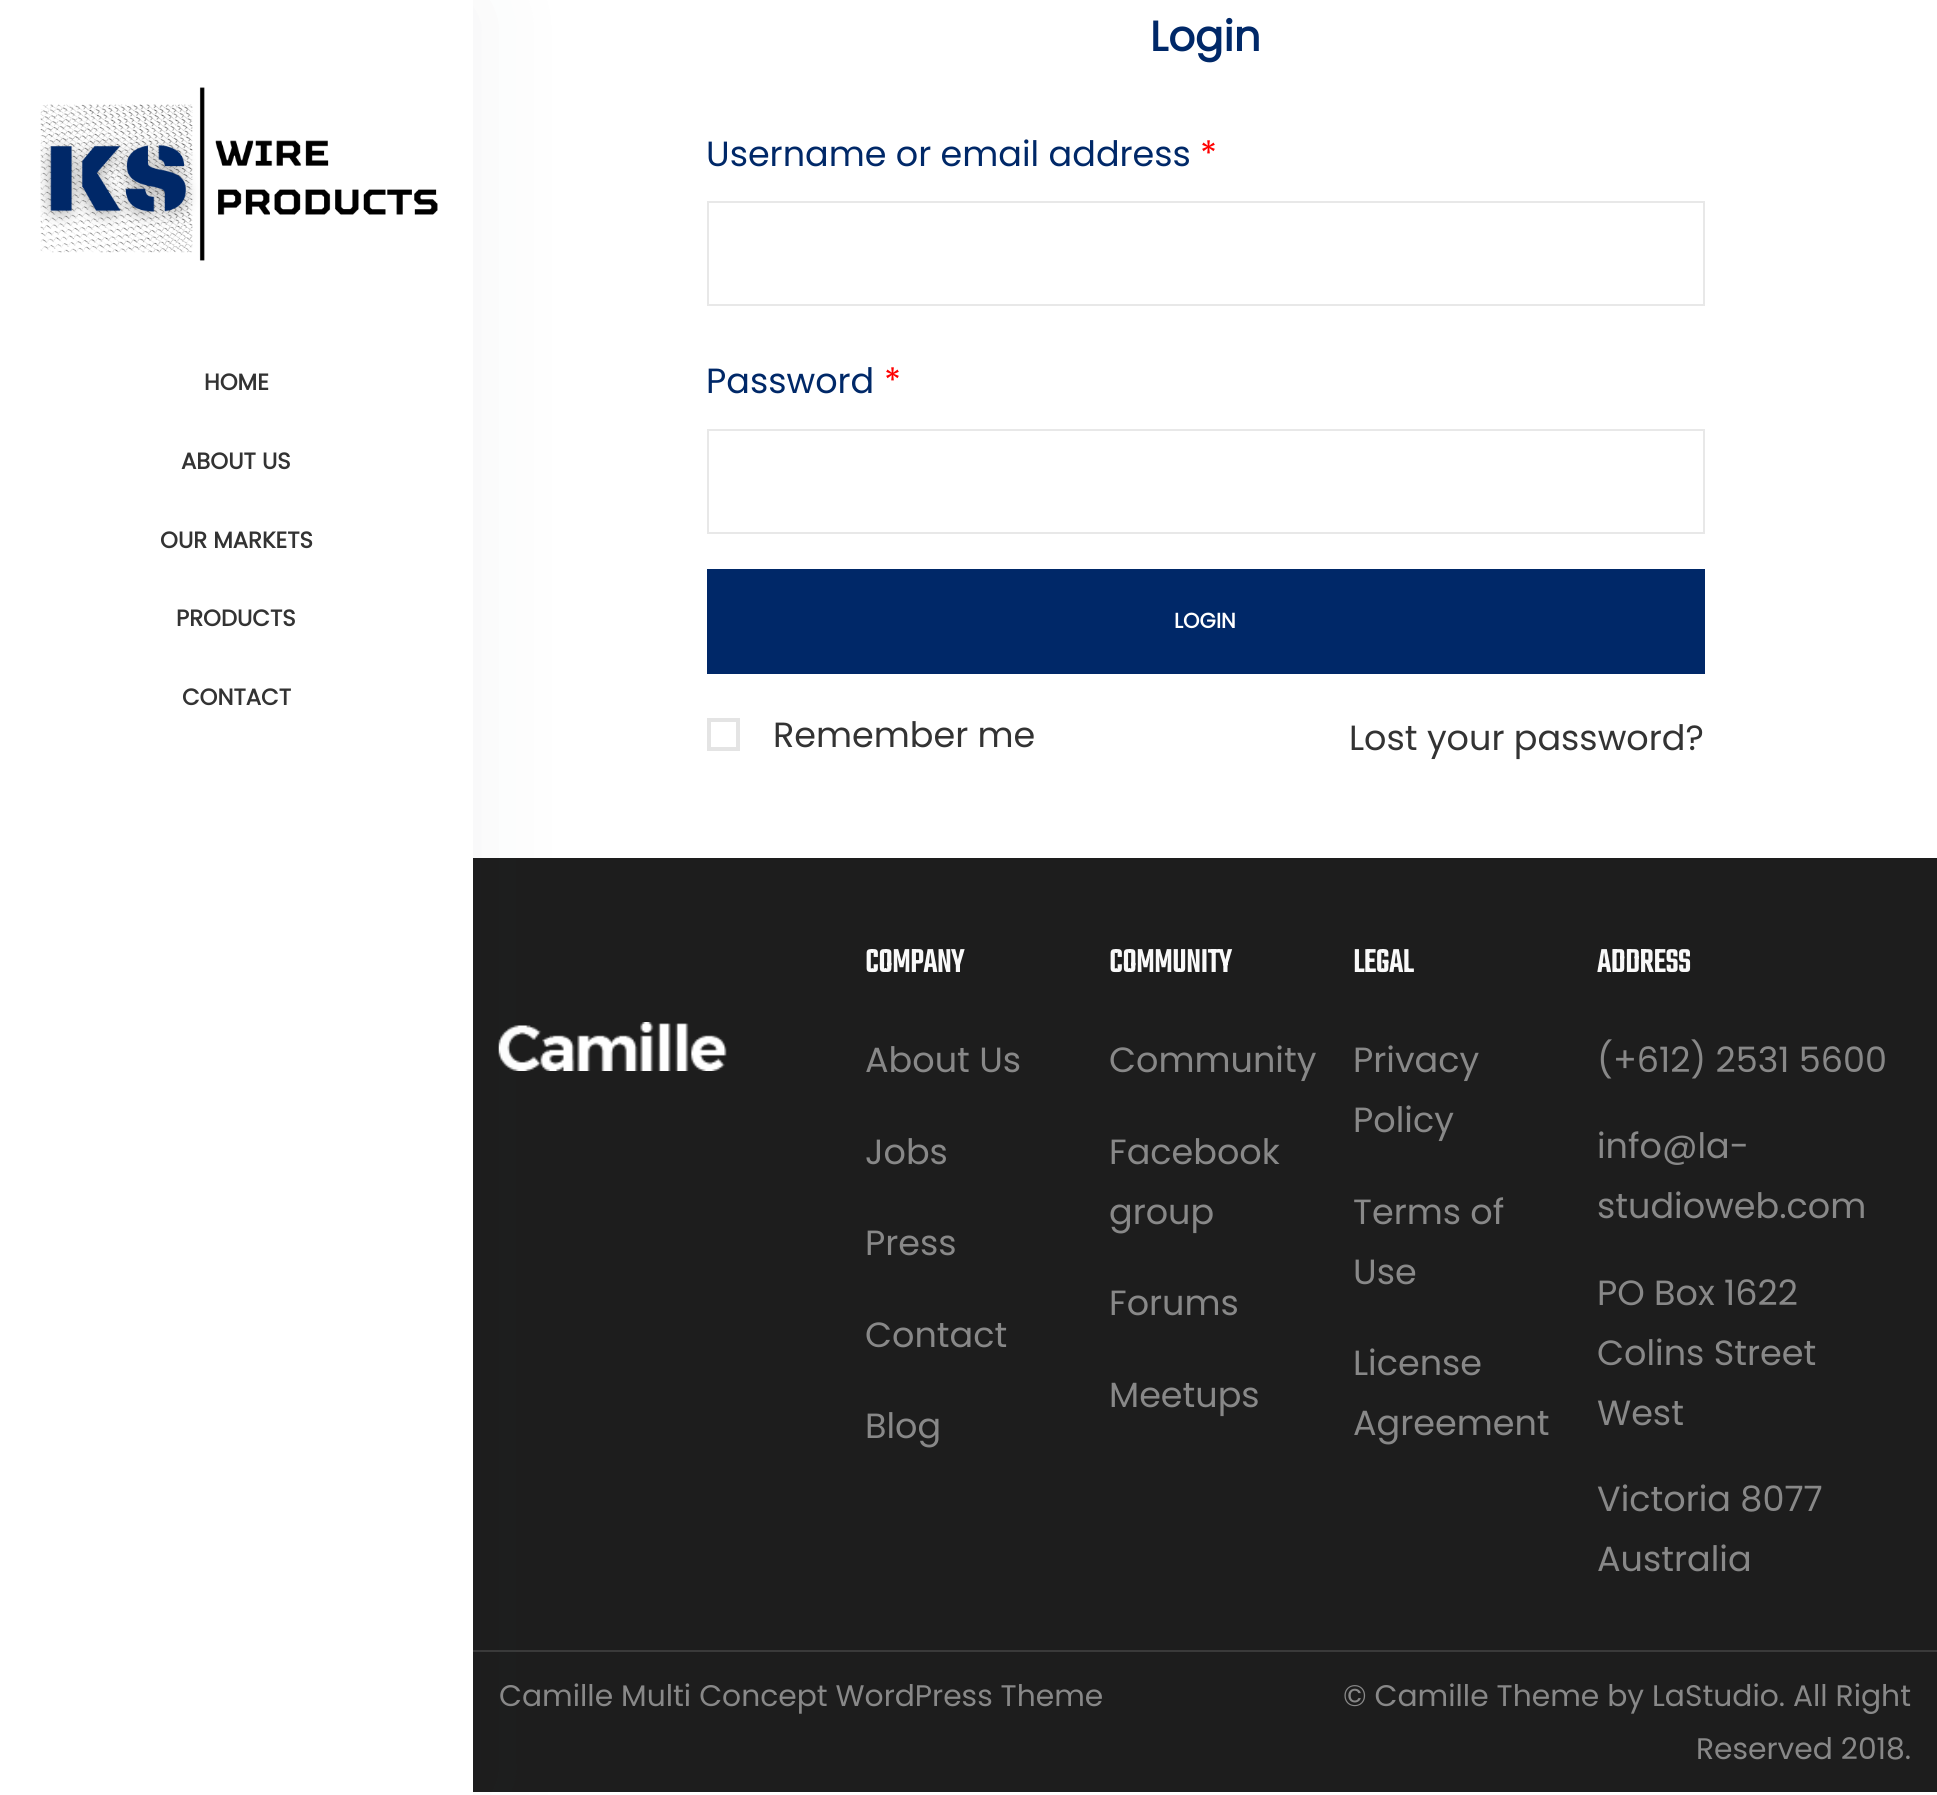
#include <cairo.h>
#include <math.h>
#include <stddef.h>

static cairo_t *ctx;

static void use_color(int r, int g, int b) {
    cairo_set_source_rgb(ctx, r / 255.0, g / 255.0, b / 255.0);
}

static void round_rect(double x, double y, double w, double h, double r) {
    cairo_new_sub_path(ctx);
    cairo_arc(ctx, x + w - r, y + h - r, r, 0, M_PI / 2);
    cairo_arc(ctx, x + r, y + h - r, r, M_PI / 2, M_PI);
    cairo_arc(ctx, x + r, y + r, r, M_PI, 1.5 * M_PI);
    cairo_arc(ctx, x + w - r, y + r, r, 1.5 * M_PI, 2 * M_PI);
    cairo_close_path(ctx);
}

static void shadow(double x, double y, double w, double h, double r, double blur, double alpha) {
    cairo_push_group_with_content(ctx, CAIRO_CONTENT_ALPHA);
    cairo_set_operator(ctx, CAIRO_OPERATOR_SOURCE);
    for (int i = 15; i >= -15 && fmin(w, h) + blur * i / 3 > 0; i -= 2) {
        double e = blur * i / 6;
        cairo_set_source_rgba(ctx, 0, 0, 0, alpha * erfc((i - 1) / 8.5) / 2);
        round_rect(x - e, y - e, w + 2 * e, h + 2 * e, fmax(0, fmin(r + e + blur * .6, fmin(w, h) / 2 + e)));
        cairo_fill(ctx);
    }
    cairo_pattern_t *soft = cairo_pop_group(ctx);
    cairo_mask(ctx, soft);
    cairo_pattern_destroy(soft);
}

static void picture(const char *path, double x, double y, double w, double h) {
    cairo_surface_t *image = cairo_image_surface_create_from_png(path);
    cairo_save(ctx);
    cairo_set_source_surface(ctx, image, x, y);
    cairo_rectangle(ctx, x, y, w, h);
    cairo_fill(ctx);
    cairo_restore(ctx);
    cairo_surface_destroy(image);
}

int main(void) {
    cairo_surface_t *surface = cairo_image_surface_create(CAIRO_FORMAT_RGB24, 1937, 1795);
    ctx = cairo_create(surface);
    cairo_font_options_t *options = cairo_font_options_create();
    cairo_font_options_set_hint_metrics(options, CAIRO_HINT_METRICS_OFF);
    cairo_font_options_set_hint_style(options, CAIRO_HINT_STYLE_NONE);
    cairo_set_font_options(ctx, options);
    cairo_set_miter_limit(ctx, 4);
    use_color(255, 255, 255);
    cairo_paint(ctx);
    use_color(29, 29, 29);
    cairo_rectangle(ctx, 473, 858, 1464, 792);
    cairo_fill(ctx);
    use_color(58, 58, 58);
    cairo_rectangle(ctx, 473, 1650, 1464, 2);
    cairo_fill(ctx);
    picture("img2.png", 498, 1022, 229, 49);
    use_color(29, 29, 29);
    cairo_rectangle(ctx, 473, 1652, 1464, 140);
    cairo_fill(ctx);
    use_color(41, 44, 58);
    shadow(0, 0, 473, 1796, 0, 52.5, 0.06);
    use_color(255, 255, 255);
    cairo_rectangle(ctx, 0, 0, 473, 1795);
    cairo_fill(ctx);
    picture("img1.png", 40, 87, 398, 174);
    cairo_select_font_face(ctx, "Poppins", CAIRO_FONT_SLANT_NORMAL, CAIRO_FONT_WEIGHT_BOLD);
    cairo_set_font_size(ctx, 22.75);
    use_color(51, 51, 51);
    cairo_move_to(ctx, 204, 390);
    cairo_show_text(ctx, "HOME");
    cairo_move_to(ctx, 181, 469);
    cairo_show_text(ctx, "ABOUT US");
    cairo_move_to(ctx, 160, 548);
    cairo_show_text(ctx, "OUR MARKETS");
    cairo_move_to(ctx, 176, 626);
    cairo_show_text(ctx, "PRODUCTS");
    cairo_move_to(ctx, 182, 705);
    cairo_show_text(ctx, "CONTACT");
    cairo_set_font_size(ctx, 42);
    use_color(0, 40, 104);
    cairo_move_to(ctx, 1150, 51);
    cairo_show_text(ctx, "Login");
    cairo_select_font_face(ctx, "Poppins", CAIRO_FONT_SLANT_NORMAL, CAIRO_FONT_WEIGHT_NORMAL);
    cairo_set_font_size(ctx, 35);
    cairo_move_to(ctx, 706, 166);
    cairo_show_text(ctx, "Username or email address");
    use_color(255, 0, 0);
    cairo_move_to(ctx, 1200, 166);
    cairo_show_text(ctx, "*");
    cairo_rectangle(ctx, 708, 202, 996, 103);
    use_color(232, 232, 232);
    cairo_stroke(ctx);
    use_color(0, 40, 104);
    cairo_move_to(ctx, 706, 393);
    cairo_show_text(ctx, "Password");
    use_color(255, 0, 0);
    cairo_move_to(ctx, 884, 393);
    cairo_show_text(ctx, "*");
    cairo_rectangle(ctx, 708, 430, 996, 103);
    use_color(232, 232, 232);
    cairo_stroke(ctx);
    use_color(0, 40, 104);
    cairo_rectangle(ctx, 707, 569, 998, 105);
    cairo_fill(ctx);
    cairo_select_font_face(ctx, "Poppins", CAIRO_FONT_SLANT_NORMAL, CAIRO_FONT_WEIGHT_BOLD);
    cairo_set_font_size(ctx, 21);
    use_color(255, 255, 255);
    cairo_move_to(ctx, 1174, 628);
    cairo_show_text(ctx, "LOGIN");
    cairo_rectangle(ctx, 709, 720, 29, 29);
    use_color(228, 228, 228);
    cairo_set_line_width(ctx, 4);
    cairo_stroke(ctx);
    cairo_select_font_face(ctx, "Poppins", CAIRO_FONT_SLANT_NORMAL, CAIRO_FONT_WEIGHT_NORMAL);
    cairo_set_font_size(ctx, 35);
    use_color(51, 51, 51);
    cairo_move_to(ctx, 773, 747);
    cairo_show_text(ctx, "Remember me");
    cairo_move_to(ctx, 1349, 750);
    cairo_show_text(ctx, "Lost your password?");
    cairo_select_font_face(ctx, "Teko", CAIRO_FONT_SLANT_NORMAL, CAIRO_FONT_WEIGHT_BOLD);
    use_color(249, 249, 249);
    cairo_move_to(ctx, 865, 972);
    cairo_show_text(ctx, "COMPANY");
    cairo_select_font_face(ctx, "Poppins", CAIRO_FONT_SLANT_NORMAL, CAIRO_FONT_WEIGHT_NORMAL);
    use_color(136, 136, 136);
    cairo_move_to(ctx, 865, 1072);
    cairo_show_text(ctx, "About Us");
    cairo_move_to(ctx, 865, 1164);
    cairo_show_text(ctx, "Jobs");
    cairo_move_to(ctx, 865, 1255);
    cairo_show_text(ctx, "Press");
    cairo_move_to(ctx, 865, 1347);
    cairo_show_text(ctx, "Contact");
    cairo_move_to(ctx, 865, 1438);
    cairo_show_text(ctx, "Blog");
    cairo_select_font_face(ctx, "Teko", CAIRO_FONT_SLANT_NORMAL, CAIRO_FONT_WEIGHT_BOLD);
    use_color(249, 249, 249);
    cairo_move_to(ctx, 1109, 972);
    cairo_show_text(ctx, "COMMUNITY");
    cairo_select_font_face(ctx, "Poppins", CAIRO_FONT_SLANT_NORMAL, CAIRO_FONT_WEIGHT_NORMAL);
    use_color(136, 136, 136);
    cairo_move_to(ctx, 1109, 1072);
    cairo_show_text(ctx, "Community");
    cairo_move_to(ctx, 1109, 1164);
    cairo_show_text(ctx, "Facebook");
    cairo_move_to(ctx, 1109, 1224);
    cairo_show_text(ctx, "group");
    cairo_move_to(ctx, 1109, 1315);
    cairo_show_text(ctx, "Forums");
    cairo_move_to(ctx, 1109, 1407);
    cairo_show_text(ctx, "Meetups");
    cairo_select_font_face(ctx, "Teko", CAIRO_FONT_SLANT_NORMAL, CAIRO_FONT_WEIGHT_BOLD);
    use_color(249, 249, 249);
    cairo_move_to(ctx, 1353, 972);
    cairo_show_text(ctx, "LEGAL");
    cairo_select_font_face(ctx, "Poppins", CAIRO_FONT_SLANT_NORMAL, CAIRO_FONT_WEIGHT_NORMAL);
    use_color(136, 136, 136);
    cairo_move_to(ctx, 1353, 1072);
    cairo_show_text(ctx, "Privacy");
    cairo_move_to(ctx, 1353, 1132);
    cairo_show_text(ctx, "Policy");
    cairo_move_to(ctx, 1353, 1224);
    cairo_show_text(ctx, "Terms of");
    cairo_move_to(ctx, 1353, 1284);
    cairo_show_text(ctx, "Use");
    cairo_move_to(ctx, 1353, 1375);
    cairo_show_text(ctx, "License");
    cairo_move_to(ctx, 1353, 1435);
    cairo_show_text(ctx, "Agreement");
    cairo_select_font_face(ctx, "Teko", CAIRO_FONT_SLANT_NORMAL, CAIRO_FONT_WEIGHT_BOLD);
    use_color(249, 249, 249);
    cairo_move_to(ctx, 1597, 972);
    cairo_show_text(ctx, "ADDRESS");
    cairo_select_font_face(ctx, "Poppins", CAIRO_FONT_SLANT_NORMAL, CAIRO_FONT_WEIGHT_NORMAL);
    use_color(136, 136, 136);
    cairo_move_to(ctx, 1597, 1072);
    cairo_show_text(ctx, "(+612) 2531 5600");
    cairo_move_to(ctx, 1597, 1158);
    cairo_show_text(ctx, "info@la-");
    cairo_move_to(ctx, 1597, 1218);
    cairo_show_text(ctx, "studioweb.com");
    cairo_move_to(ctx, 1597, 1305);
    cairo_show_text(ctx, "PO Box 1622");
    cairo_move_to(ctx, 1597, 1365);
    cairo_show_text(ctx, "Colins Street");
    cairo_move_to(ctx, 1597, 1425);
    cairo_show_text(ctx, "West");
    cairo_move_to(ctx, 1597, 1511);
    cairo_show_text(ctx, "Victoria 8077");
    cairo_move_to(ctx, 1597, 1571);
    cairo_show_text(ctx, "Australia");
    cairo_set_font_size(ctx, 29.75);
    cairo_move_to(ctx, 499, 1706);
    cairo_show_text(ctx, "Camille Multi Concept WordPress Theme");
    cairo_move_to(ctx, 1343, 1706);
    cairo_show_text(ctx, "© Camille Theme by LaStudio. All Right");
    cairo_move_to(ctx, 1696, 1759);
    cairo_show_text(ctx, "Reserved 2018.");
    cairo_surface_write_to_png(surface, "result.png");
    cairo_font_options_destroy(options);
    cairo_destroy(ctx);
    cairo_surface_destroy(surface);
    return 0;
}
